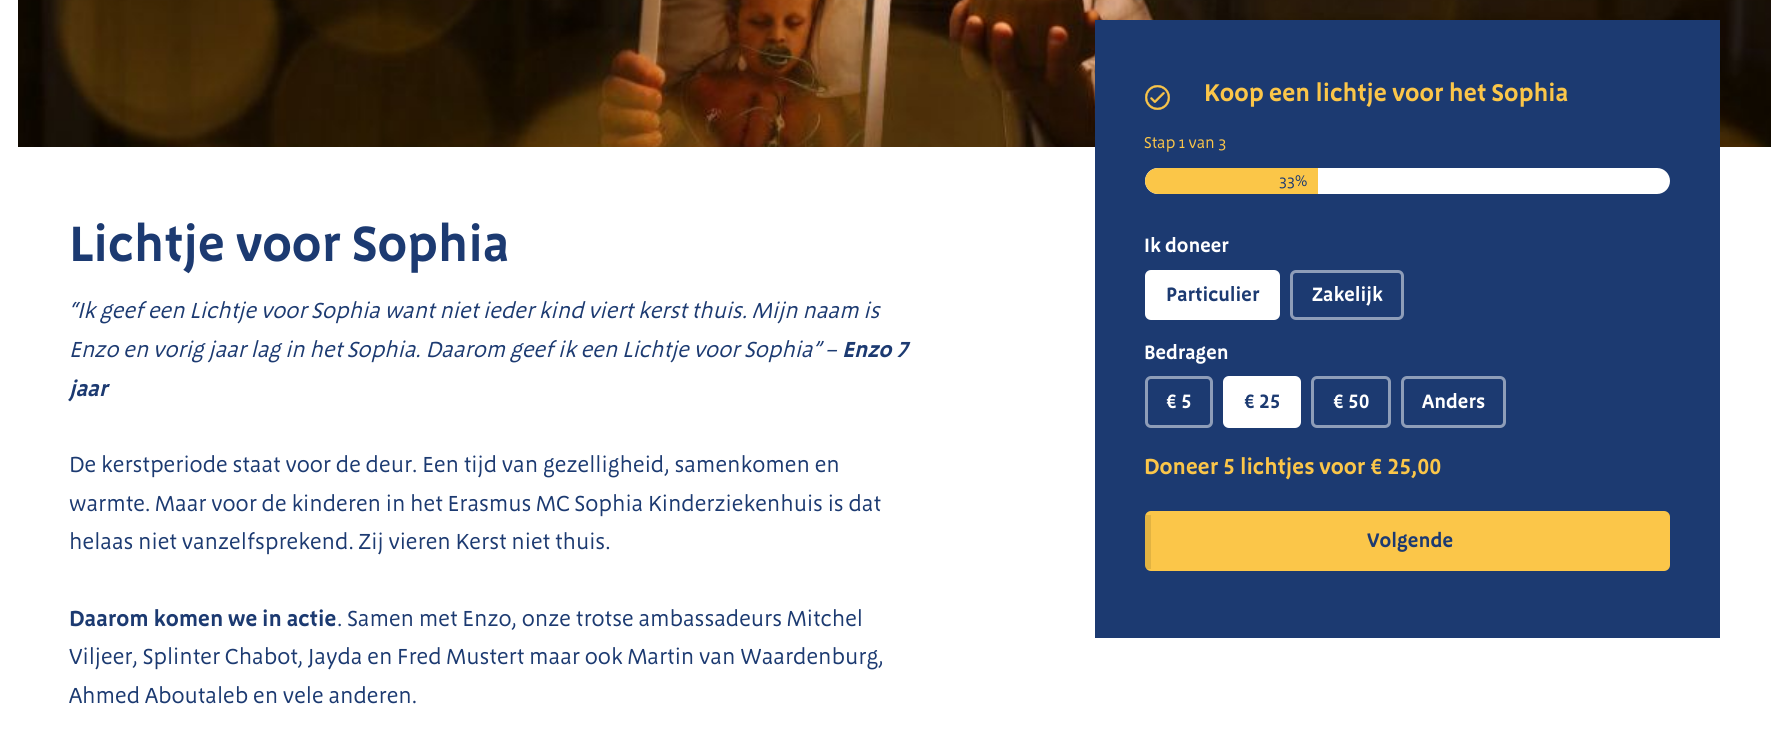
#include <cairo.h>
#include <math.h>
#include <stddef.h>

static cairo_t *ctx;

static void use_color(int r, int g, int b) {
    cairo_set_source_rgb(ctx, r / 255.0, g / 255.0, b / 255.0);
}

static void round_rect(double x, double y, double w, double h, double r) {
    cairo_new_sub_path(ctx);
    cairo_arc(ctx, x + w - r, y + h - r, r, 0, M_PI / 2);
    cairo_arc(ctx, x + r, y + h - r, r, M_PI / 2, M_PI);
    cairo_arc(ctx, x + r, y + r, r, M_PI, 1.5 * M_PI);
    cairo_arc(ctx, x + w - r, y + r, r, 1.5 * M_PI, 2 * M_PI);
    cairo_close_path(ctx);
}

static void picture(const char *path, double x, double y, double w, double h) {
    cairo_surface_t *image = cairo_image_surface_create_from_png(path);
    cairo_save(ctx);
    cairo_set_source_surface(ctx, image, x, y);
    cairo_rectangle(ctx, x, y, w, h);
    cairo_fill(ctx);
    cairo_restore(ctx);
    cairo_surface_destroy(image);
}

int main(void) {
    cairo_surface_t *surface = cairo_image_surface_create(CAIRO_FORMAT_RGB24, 1788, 733);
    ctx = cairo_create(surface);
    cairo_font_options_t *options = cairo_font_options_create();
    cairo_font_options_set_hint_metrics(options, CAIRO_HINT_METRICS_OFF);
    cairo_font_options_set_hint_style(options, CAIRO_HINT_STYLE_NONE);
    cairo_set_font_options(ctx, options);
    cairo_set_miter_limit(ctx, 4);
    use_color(255, 255, 255);
    cairo_paint(ctx);
    picture("img1.png", 18, 0, 1753, 147);
    cairo_select_font_face(ctx, "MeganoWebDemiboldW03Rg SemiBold", CAIRO_FONT_SLANT_NORMAL, CAIRO_FONT_WEIGHT_NORMAL);
    cairo_set_font_size(ctx, 51.25);
    use_color(28, 58, 113);
    cairo_move_to(ctx, 69, 261);
    cairo_show_text(ctx, "Lichtje voor Sophia");
    cairo_select_font_face(ctx, "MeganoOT", CAIRO_FONT_SLANT_ITALIC, CAIRO_FONT_WEIGHT_NORMAL);
    cairo_set_font_size(ctx, 22.5);
    cairo_move_to(ctx, 69, 318);
    cairo_show_text(ctx, "“Ik geef een Lichtje voor Sophia want niet ieder kind viert kerst thuis. Mijn naam is");
    cairo_move_to(ctx, 69, 357);
    cairo_show_text(ctx, "Enzo en vorig jaar lag in het Sophia. Daarom geef ik een Lichtje voor Sophia” –");
    cairo_select_font_face(ctx, "MeganoWebDemiboldW03Rg SemiBold", CAIRO_FONT_SLANT_ITALIC, CAIRO_FONT_WEIGHT_NORMAL);
    cairo_move_to(ctx, 842, 357);
    cairo_show_text(ctx, "Enzo 7");
    cairo_move_to(ctx, 69, 396);
    cairo_show_text(ctx, "jaar");
    cairo_select_font_face(ctx, "MeganoOT", CAIRO_FONT_SLANT_NORMAL, CAIRO_FONT_WEIGHT_NORMAL);
    cairo_move_to(ctx, 69, 472);
    cairo_show_text(ctx, "De kerstperiode staat voor de deur. Een tijd van gezelligheid, samenkomen en");
    cairo_move_to(ctx, 69, 511);
    cairo_show_text(ctx, "warmte. Maar voor de kinderen in het Erasmus MC Sophia Kinderziekenhuis is dat");
    cairo_move_to(ctx, 69, 549);
    cairo_show_text(ctx, "helaas niet vanzelfsprekend. Zij vieren Kerst niet thuis.");
    cairo_select_font_face(ctx, "MeganoWebDemiboldW03Rg SemiBold", CAIRO_FONT_SLANT_NORMAL, CAIRO_FONT_WEIGHT_NORMAL);
    cairo_move_to(ctx, 69, 626);
    cairo_show_text(ctx, "Daarom komen we in actie");
    cairo_select_font_face(ctx, "MeganoOT", CAIRO_FONT_SLANT_NORMAL, CAIRO_FONT_WEIGHT_NORMAL);
    cairo_move_to(ctx, 337, 626);
    cairo_show_text(ctx, ". Samen met Enzo, onze trotse ambassadeurs Mitchel");
    cairo_move_to(ctx, 69, 664);
    cairo_show_text(ctx, "Viljeer, Splinter Chabot, Jayda en Fred Mustert maar ook Martin van Waardenburg,");
    cairo_move_to(ctx, 69, 703);
    cairo_show_text(ctx, "Ahmed Aboutaleb en vele anderen.");
    cairo_rectangle(ctx, 1095, 20, 625, 618);
    cairo_fill(ctx);
    picture("img2.png", 1145, 85, 25, 25);
    cairo_select_font_face(ctx, "MeganoWebDemiboldW03Rg SemiBold", CAIRO_FONT_SLANT_NORMAL, CAIRO_FONT_WEIGHT_NORMAL);
    cairo_set_font_size(ctx, 25);
    use_color(251, 198, 73);
    cairo_move_to(ctx, 1204, 101);
    cairo_show_text(ctx, "Koop een lichtje voor het Sophia");
    cairo_select_font_face(ctx, "MeganoOT", CAIRO_FONT_SLANT_NORMAL, CAIRO_FONT_WEIGHT_NORMAL);
    cairo_set_font_size(ctx, 16.25);
    cairo_move_to(ctx, 1144, 148);
    cairo_show_text(ctx, "Stap 1 van 3");
    use_color(255, 255, 255);
    round_rect(1145, 168, 525, 26, 13);
    cairo_fill(ctx);
    use_color(251, 198, 72);
    cairo_new_path(ctx);
    cairo_move_to(ctx, 1158, 168);
    cairo_line_to(ctx, 1318, 168);
    cairo_line_to(ctx, 1318, 194);
    cairo_line_to(ctx, 1158, 194);
    cairo_curve_to(ctx, 1151, 194, 1145, 188, 1145, 181);
    cairo_curve_to(ctx, 1145, 174, 1151, 168, 1158, 168);
    cairo_close_path(ctx);
    cairo_fill(ctx);
    cairo_set_font_size(ctx, 16);
    use_color(28, 58, 113);
    cairo_move_to(ctx, 1279, 186);
    cairo_show_text(ctx, "33%");
    cairo_select_font_face(ctx, "MeganoWebDemiboldW03Rg SemiBold", CAIRO_FONT_SLANT_NORMAL, CAIRO_FONT_WEIGHT_NORMAL);
    cairo_set_font_size(ctx, 20);
    use_color(255, 255, 255);
    cairo_move_to(ctx, 1144, 252);
    cairo_show_text(ctx, "Ik doneer");
    round_rect(1146.5, 271.5, 132, 47, 4.5);
    cairo_fill_preserve(ctx);
    cairo_set_line_width(ctx, 3);
    cairo_stroke(ctx);
    use_color(28, 58, 113);
    cairo_move_to(ctx, 1166, 301);
    cairo_show_text(ctx, "Particulier");
    round_rect(1291.5, 271.5, 111, 47, 4.5);
    use_color(142, 157, 184);
    cairo_stroke(ctx);
    use_color(255, 255, 255);
    cairo_move_to(ctx, 1312, 301);
    cairo_show_text(ctx, "Zakelijk");
    cairo_move_to(ctx, 1144, 359);
    cairo_show_text(ctx, "Bedragen");
    round_rect(1146.5, 377.5, 65, 49, 4.5);
    use_color(142, 157, 184);
    cairo_stroke(ctx);
    use_color(255, 255, 255);
    cairo_move_to(ctx, 1166, 408);
    cairo_show_text(ctx, "€ 5");
    round_rect(1224.5, 377.5, 75, 49, 4.5);
    cairo_fill_preserve(ctx);
    cairo_stroke(ctx);
    use_color(28, 58, 113);
    cairo_move_to(ctx, 1244, 408);
    cairo_show_text(ctx, "€ 25");
    round_rect(1312.5, 377.5, 77, 49, 4.5);
    use_color(142, 157, 184);
    cairo_stroke(ctx);
    use_color(255, 255, 255);
    cairo_move_to(ctx, 1333, 408);
    cairo_show_text(ctx, "€ 50");
    round_rect(1402.5, 377.5, 102, 49, 4.5);
    use_color(142, 157, 184);
    cairo_stroke(ctx);
    use_color(255, 255, 255);
    cairo_move_to(ctx, 1422, 408);
    cairo_show_text(ctx, "Anders");
    cairo_set_font_size(ctx, 22.5);
    use_color(251, 198, 73);
    cairo_move_to(ctx, 1144, 474);
    cairo_show_text(ctx, "Doneer 5 lichtjes voor € 25,00");
    round_rect(1145, 511, 525, 60, 6);
    cairo_fill(ctx);
    cairo_set_source_rgba(ctx, 0, 0, 0, 0.1);
    cairo_rectangle(ctx, 1145, 515, 6, 54);
    cairo_fill(ctx);
    cairo_set_font_size(ctx, 20.25);
    use_color(28, 58, 113);
    cairo_move_to(ctx, 1367, 547);
    cairo_show_text(ctx, "Volgende");
    cairo_surface_write_to_png(surface, "result.png");
    cairo_font_options_destroy(options);
    cairo_destroy(ctx);
    cairo_surface_destroy(surface);
    return 0;
}
